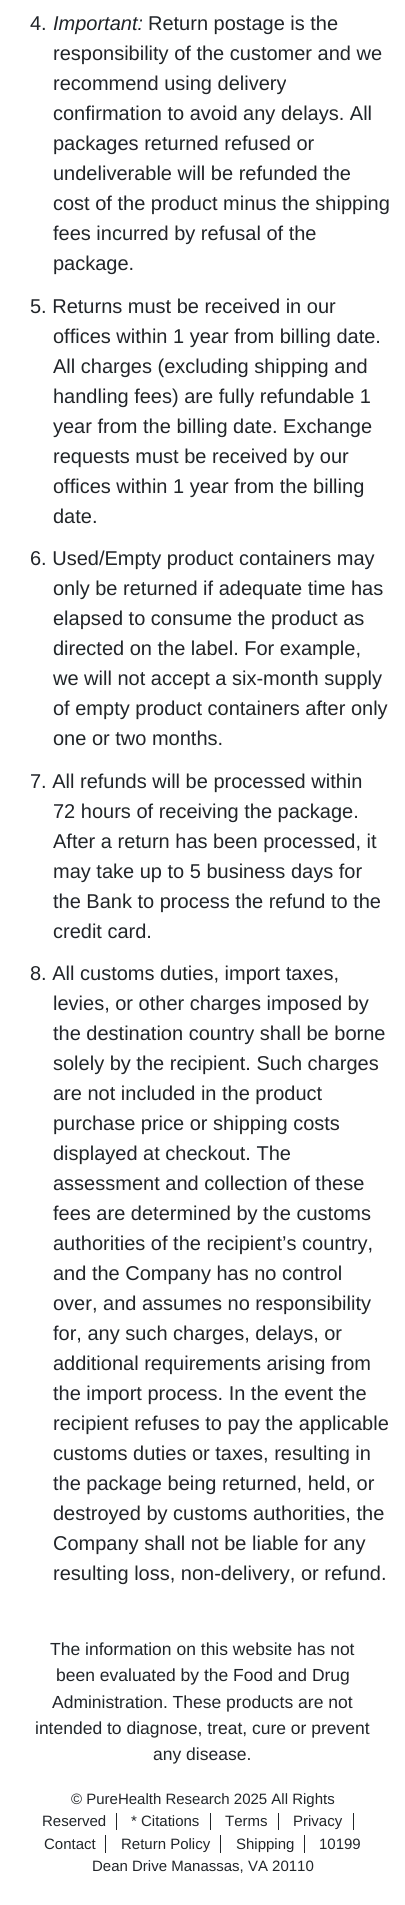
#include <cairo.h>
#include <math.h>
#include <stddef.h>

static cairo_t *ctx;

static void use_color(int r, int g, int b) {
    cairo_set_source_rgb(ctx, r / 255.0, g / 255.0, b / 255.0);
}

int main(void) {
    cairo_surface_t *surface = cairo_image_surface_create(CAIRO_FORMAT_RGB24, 405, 1905);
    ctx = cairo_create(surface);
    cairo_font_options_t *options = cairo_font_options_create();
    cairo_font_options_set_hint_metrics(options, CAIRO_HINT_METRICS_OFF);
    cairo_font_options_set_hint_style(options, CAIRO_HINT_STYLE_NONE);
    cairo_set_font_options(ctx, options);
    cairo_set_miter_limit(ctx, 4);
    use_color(255, 255, 255);
    cairo_paint(ctx);
    cairo_select_font_face(ctx, "Liberation Sans", CAIRO_FONT_SLANT_NORMAL, CAIRO_FONT_WEIGHT_NORMAL);
    cairo_set_font_size(ctx, 20);
    use_color(33, 37, 41);
    cairo_move_to(ctx, 30, 30);
    cairo_show_text(ctx, "4.");
    cairo_select_font_face(ctx, "Liberation Sans", CAIRO_FONT_SLANT_ITALIC, CAIRO_FONT_WEIGHT_NORMAL);
    cairo_move_to(ctx, 53, 30);
    cairo_show_text(ctx, "Important:");
    cairo_select_font_face(ctx, "Liberation Sans", CAIRO_FONT_SLANT_NORMAL, CAIRO_FONT_WEIGHT_NORMAL);
    cairo_move_to(ctx, 148, 30);
    cairo_show_text(ctx, "Return postage is the");
    cairo_move_to(ctx, 53, 60);
    cairo_show_text(ctx, "responsibility of the customer and we");
    cairo_move_to(ctx, 53, 90);
    cairo_show_text(ctx, "recommend using delivery");
    cairo_move_to(ctx, 53, 120);
    cairo_show_text(ctx, "confirmation to avoid any delays. All");
    cairo_move_to(ctx, 53, 150);
    cairo_show_text(ctx, "packages returned refused or");
    cairo_move_to(ctx, 53, 180);
    cairo_show_text(ctx, "undeliverable will be refunded the");
    cairo_move_to(ctx, 53, 210);
    cairo_show_text(ctx, "cost of the product minus the shipping");
    cairo_move_to(ctx, 53, 240);
    cairo_show_text(ctx, "fees incurred by refusal of the");
    cairo_move_to(ctx, 53, 270);
    cairo_show_text(ctx, "package.");
    cairo_move_to(ctx, 30, 313);
    cairo_show_text(ctx, "5. Returns must be received in our");
    cairo_move_to(ctx, 53, 343);
    cairo_show_text(ctx, "offices within 1 year from billing date.");
    cairo_move_to(ctx, 53, 373);
    cairo_show_text(ctx, "All charges (excluding shipping and");
    cairo_move_to(ctx, 53, 403);
    cairo_show_text(ctx, "handling fees) are fully refundable 1");
    cairo_move_to(ctx, 53, 433);
    cairo_show_text(ctx, "year from the billing date. Exchange");
    cairo_move_to(ctx, 53, 463);
    cairo_show_text(ctx, "requests must be received by our");
    cairo_move_to(ctx, 53, 493);
    cairo_show_text(ctx, "offices within 1 year from the billing");
    cairo_move_to(ctx, 53, 523);
    cairo_show_text(ctx, "date.");
    cairo_move_to(ctx, 30, 565);
    cairo_show_text(ctx, "6. Used/Empty product containers may");
    cairo_move_to(ctx, 53, 595);
    cairo_show_text(ctx, "only be returned if adequate time has");
    cairo_move_to(ctx, 53, 625);
    cairo_show_text(ctx, "elapsed to consume the product as");
    cairo_move_to(ctx, 53, 655);
    cairo_show_text(ctx, "directed on the label. For example,");
    cairo_move_to(ctx, 53, 685);
    cairo_show_text(ctx, "we will not accept a six-month supply");
    cairo_move_to(ctx, 53, 715);
    cairo_show_text(ctx, "of empty product containers after only");
    cairo_move_to(ctx, 53, 745);
    cairo_show_text(ctx, "one or two months.");
    cairo_move_to(ctx, 30, 788);
    cairo_show_text(ctx, "7. All refunds will be processed within");
    cairo_move_to(ctx, 53, 818);
    cairo_show_text(ctx, "72 hours of receiving the package.");
    cairo_move_to(ctx, 53, 848);
    cairo_show_text(ctx, "After a return has been processed, it");
    cairo_move_to(ctx, 53, 878);
    cairo_show_text(ctx, "may take up to 5 business days for");
    cairo_move_to(ctx, 53, 908);
    cairo_show_text(ctx, "the Bank to process the refund to the");
    cairo_move_to(ctx, 53, 938);
    cairo_show_text(ctx, "credit card.");
    cairo_move_to(ctx, 30, 980);
    cairo_show_text(ctx, "8. All customs duties, import taxes,");
    cairo_move_to(ctx, 53, 1010);
    cairo_show_text(ctx, "levies, or other charges imposed by");
    cairo_move_to(ctx, 53, 1040);
    cairo_show_text(ctx, "the destination country shall be borne");
    cairo_move_to(ctx, 53, 1070);
    cairo_show_text(ctx, "solely by the recipient. Such charges");
    cairo_move_to(ctx, 53, 1100);
    cairo_show_text(ctx, "are not included in the product");
    cairo_move_to(ctx, 53, 1130);
    cairo_show_text(ctx, "purchase price or shipping costs");
    cairo_move_to(ctx, 53, 1160);
    cairo_show_text(ctx, "displayed at checkout. The");
    cairo_move_to(ctx, 53, 1190);
    cairo_show_text(ctx, "assessment and collection of these");
    cairo_move_to(ctx, 53, 1220);
    cairo_show_text(ctx, "fees are determined by the customs");
    cairo_move_to(ctx, 53, 1250);
    cairo_show_text(ctx, "authorities of the recipient’s country,");
    cairo_move_to(ctx, 53, 1280);
    cairo_show_text(ctx, "and the Company has no control");
    cairo_move_to(ctx, 53, 1310);
    cairo_show_text(ctx, "over, and assumes no responsibility");
    cairo_move_to(ctx, 53, 1340);
    cairo_show_text(ctx, "for, any such charges, delays, or");
    cairo_move_to(ctx, 53, 1370);
    cairo_show_text(ctx, "additional requirements arising from");
    cairo_move_to(ctx, 53, 1400);
    cairo_show_text(ctx, "the import process. In the event the");
    cairo_move_to(ctx, 53, 1430);
    cairo_show_text(ctx, "recipient refuses to pay the applicable");
    cairo_move_to(ctx, 53, 1460);
    cairo_show_text(ctx, "customs duties or taxes, resulting in");
    cairo_move_to(ctx, 53, 1490);
    cairo_show_text(ctx, "the package being returned, held, or");
    cairo_move_to(ctx, 53, 1520);
    cairo_show_text(ctx, "destroyed by customs authorities, the");
    cairo_move_to(ctx, 53, 1550);
    cairo_show_text(ctx, "Company shall not be liable for any");
    cairo_move_to(ctx, 53, 1580);
    cairo_show_text(ctx, "resulting loss, non-delivery, or refund.");
    cairo_set_font_size(ctx, 17.5);
    cairo_move_to(ctx, 50, 1655);
    cairo_show_text(ctx, "The information on this website has not");
    cairo_move_to(ctx, 56, 1681);
    cairo_show_text(ctx, "been evaluated by the Food and Drug");
    cairo_move_to(ctx, 52, 1708);
    cairo_show_text(ctx, "Administration. These products are not");
    cairo_move_to(ctx, 35, 1734);
    cairo_show_text(ctx, "intended to diagnose, treat, cure or prevent");
    cairo_move_to(ctx, 153, 1760);
    cairo_show_text(ctx, "any disease.");
    cairo_set_font_size(ctx, 15);
    cairo_move_to(ctx, 71, 1804);
    cairo_show_text(ctx, "© PureHealth Research 2025 All Rights");
    cairo_move_to(ctx, 42, 1826);
    cairo_show_text(ctx, "Reserved");
    cairo_rectangle(ctx, 116, 1813, 1, 17);
    cairo_fill(ctx);
    cairo_move_to(ctx, 131, 1826);
    cairo_show_text(ctx, "* Citations");
    cairo_rectangle(ctx, 210, 1813, 1, 17);
    cairo_fill(ctx);
    cairo_move_to(ctx, 225, 1826);
    cairo_show_text(ctx, "Terms");
    cairo_rectangle(ctx, 278, 1813, 1, 17);
    cairo_fill(ctx);
    cairo_move_to(ctx, 293, 1826);
    cairo_show_text(ctx, "Privacy");
    cairo_rectangle(ctx, 353, 1813, 1, 17);
    cairo_fill(ctx);
    cairo_move_to(ctx, 44, 1849);
    cairo_show_text(ctx, "Contact");
    cairo_rectangle(ctx, 105, 1835, 1, 18);
    cairo_fill(ctx);
    cairo_move_to(ctx, 121, 1849);
    cairo_show_text(ctx, "Return Policy");
    cairo_rectangle(ctx, 220, 1835, 1, 18);
    cairo_fill(ctx);
    cairo_move_to(ctx, 236, 1849);
    cairo_show_text(ctx, "Shipping");
    cairo_rectangle(ctx, 304, 1835, 1, 18);
    cairo_fill(ctx);
    cairo_move_to(ctx, 319, 1849);
    cairo_show_text(ctx, "10199");
    cairo_move_to(ctx, 92, 1871);
    cairo_show_text(ctx, "Dean Drive Manassas, VA 20110");
    cairo_surface_write_to_png(surface, "result.png");
    cairo_font_options_destroy(options);
    cairo_destroy(ctx);
    cairo_surface_destroy(surface);
    return 0;
}
